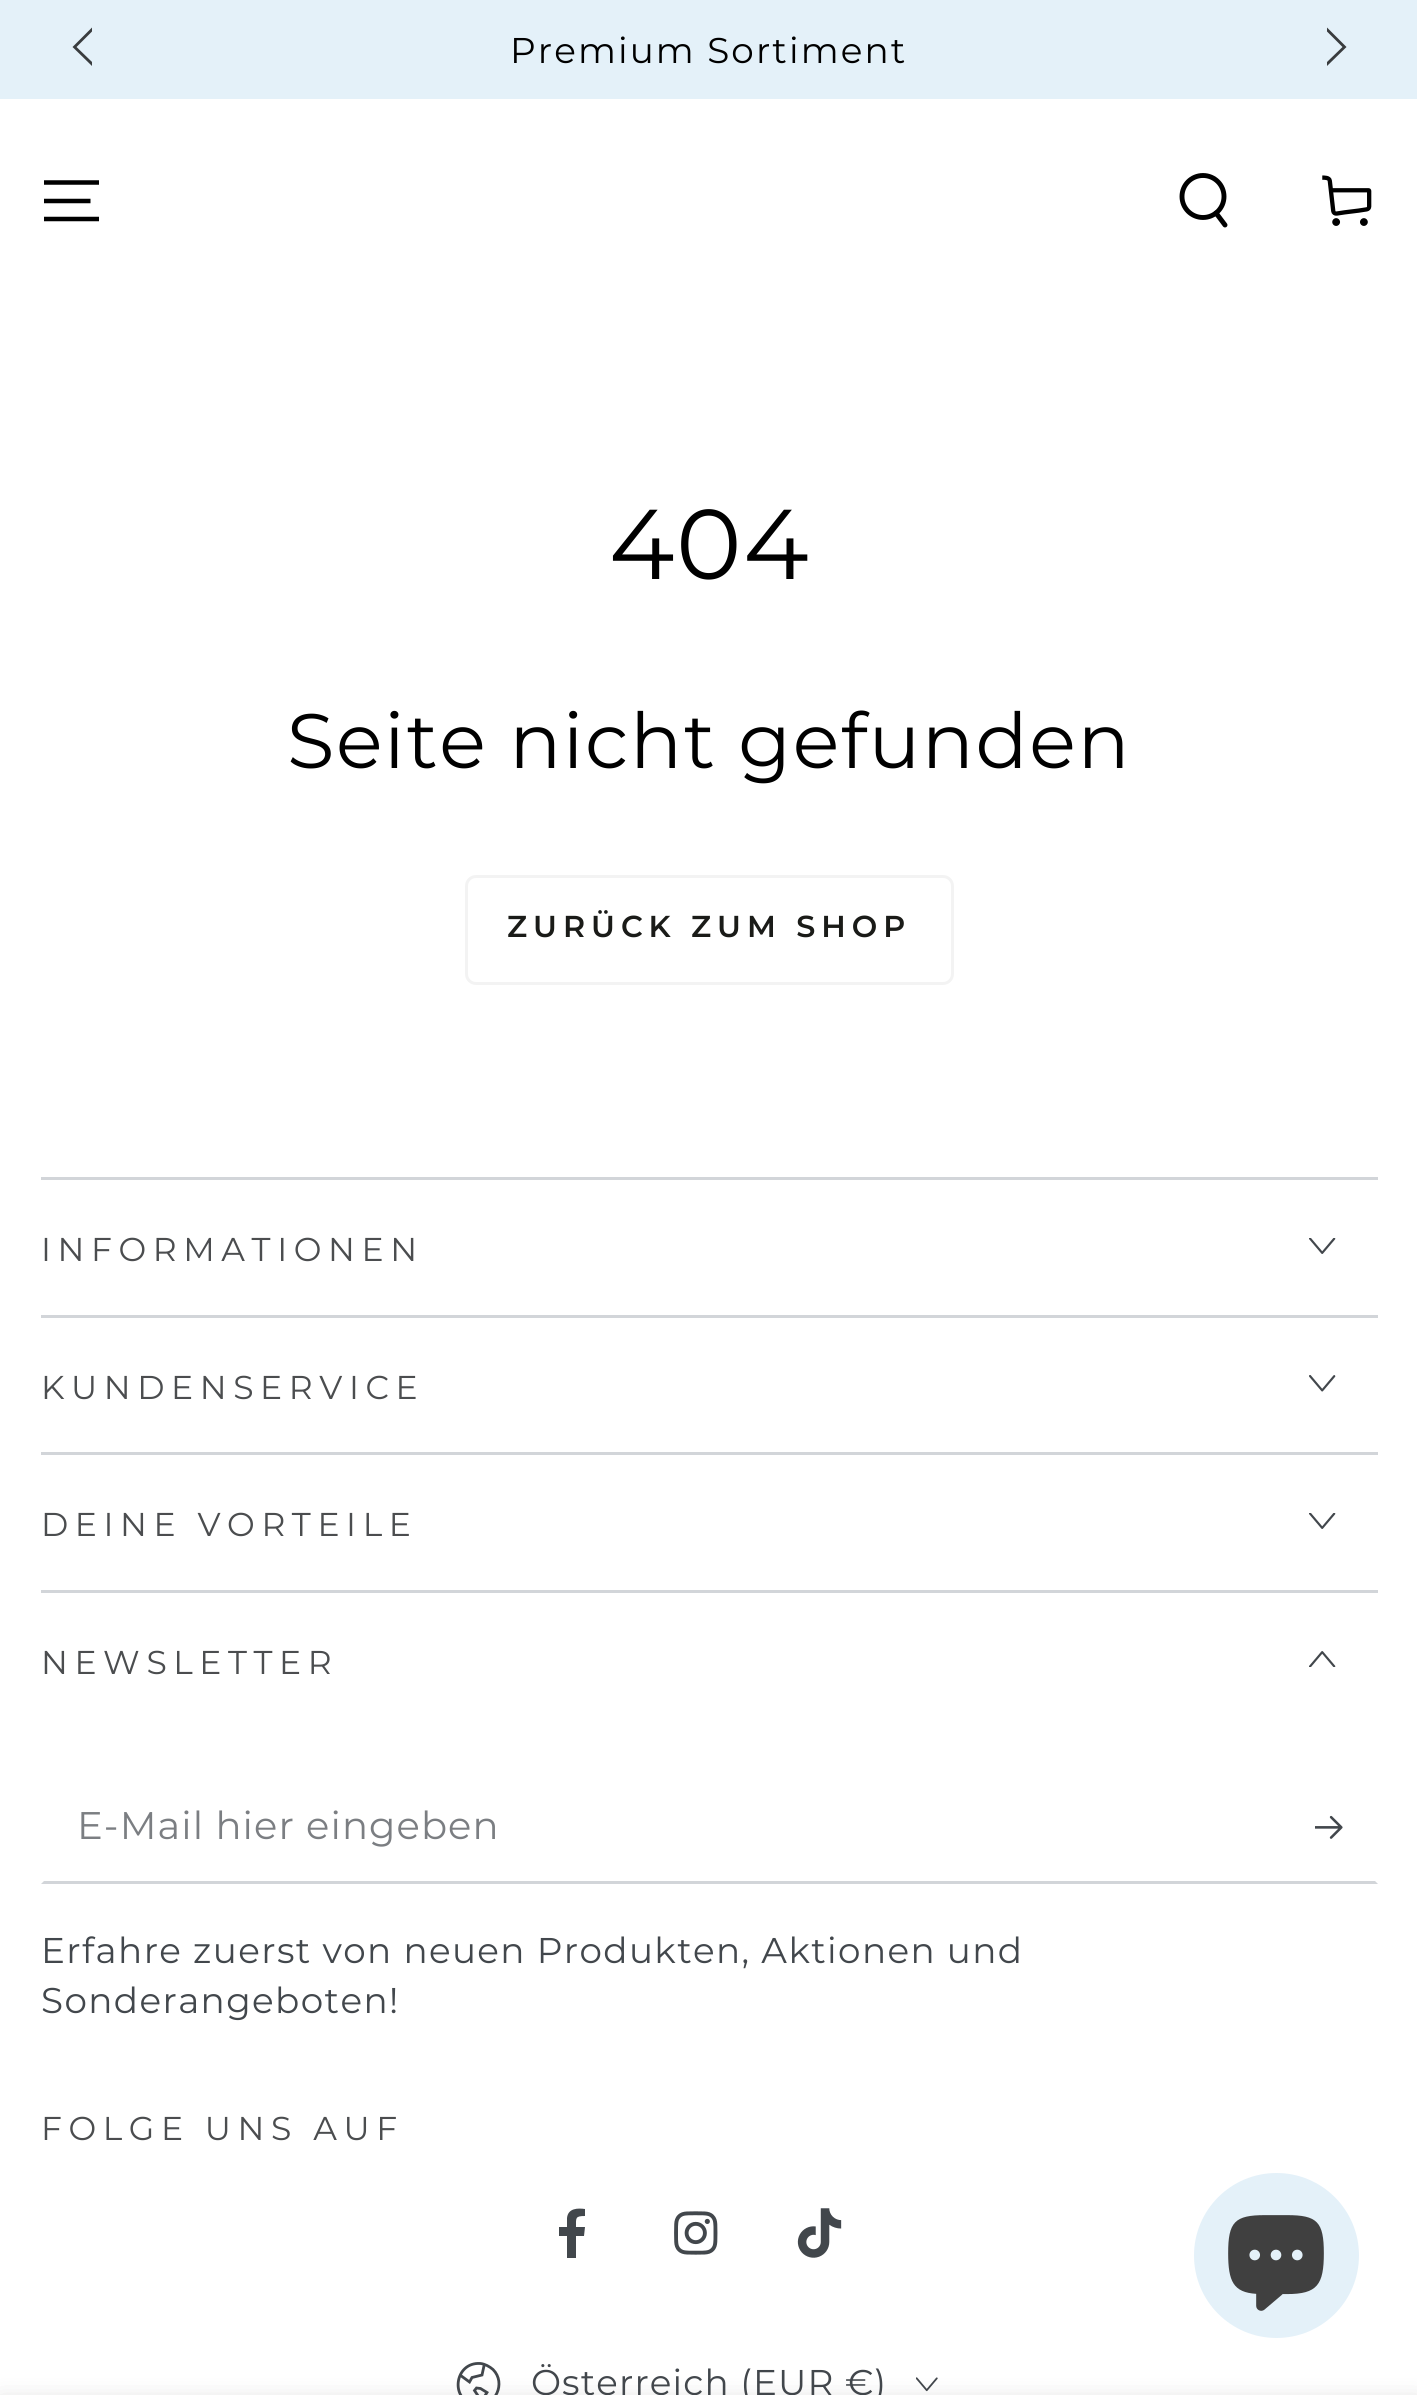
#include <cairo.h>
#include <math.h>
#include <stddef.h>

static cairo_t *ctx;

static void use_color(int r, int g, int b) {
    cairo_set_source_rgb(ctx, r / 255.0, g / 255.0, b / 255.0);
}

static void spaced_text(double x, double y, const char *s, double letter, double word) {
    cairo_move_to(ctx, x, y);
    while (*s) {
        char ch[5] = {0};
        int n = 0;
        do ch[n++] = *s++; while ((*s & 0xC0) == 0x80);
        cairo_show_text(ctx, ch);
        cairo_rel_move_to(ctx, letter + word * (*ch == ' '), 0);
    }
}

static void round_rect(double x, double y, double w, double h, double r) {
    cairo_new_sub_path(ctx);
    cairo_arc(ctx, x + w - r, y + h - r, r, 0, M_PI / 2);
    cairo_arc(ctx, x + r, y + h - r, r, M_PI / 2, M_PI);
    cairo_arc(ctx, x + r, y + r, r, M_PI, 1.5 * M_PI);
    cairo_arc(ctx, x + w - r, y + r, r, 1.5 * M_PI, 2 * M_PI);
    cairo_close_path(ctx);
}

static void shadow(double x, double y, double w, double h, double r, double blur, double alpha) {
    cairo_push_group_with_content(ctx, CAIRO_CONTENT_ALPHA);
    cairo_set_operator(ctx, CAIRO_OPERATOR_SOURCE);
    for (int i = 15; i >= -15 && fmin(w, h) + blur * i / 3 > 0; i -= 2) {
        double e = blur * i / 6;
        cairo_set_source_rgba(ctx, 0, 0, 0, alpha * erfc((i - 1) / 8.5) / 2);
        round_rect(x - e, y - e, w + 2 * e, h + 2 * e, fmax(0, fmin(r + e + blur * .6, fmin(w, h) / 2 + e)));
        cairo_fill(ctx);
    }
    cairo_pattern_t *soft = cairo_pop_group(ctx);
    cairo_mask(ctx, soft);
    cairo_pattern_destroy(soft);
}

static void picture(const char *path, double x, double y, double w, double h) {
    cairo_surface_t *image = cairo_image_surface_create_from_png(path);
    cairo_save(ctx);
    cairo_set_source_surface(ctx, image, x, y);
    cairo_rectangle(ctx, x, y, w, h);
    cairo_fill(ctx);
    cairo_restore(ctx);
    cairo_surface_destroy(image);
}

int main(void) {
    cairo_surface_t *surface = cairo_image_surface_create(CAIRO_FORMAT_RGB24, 1417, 2395);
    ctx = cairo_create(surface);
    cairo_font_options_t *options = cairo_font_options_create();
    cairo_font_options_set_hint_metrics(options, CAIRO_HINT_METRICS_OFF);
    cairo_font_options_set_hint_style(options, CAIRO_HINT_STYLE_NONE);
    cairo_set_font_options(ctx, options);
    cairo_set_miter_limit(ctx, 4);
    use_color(255, 255, 255);
    cairo_paint(ctx);
    use_color(228, 241, 249);
    cairo_rectangle(ctx, 0, 0, 1417, 99);
    cairo_fill(ctx);
    use_color(57, 60, 62);
    cairo_set_fill_rule(ctx, CAIRO_FILL_RULE_EVEN_ODD);
    cairo_new_path(ctx);
    cairo_move_to(ctx, 72.5, 47);
    cairo_line_to(ctx, 92, 66);
    cairo_line_to(ctx, 92, 62);
    cairo_line_to(ctx, 76.5, 47);
    cairo_line_to(ctx, 92, 31.5);
    cairo_line_to(ctx, 92, 27.5);
    cairo_close_path(ctx);
    cairo_fill(ctx);
    cairo_new_path(ctx);
    cairo_move_to(ctx, 1346.5, 47);
    cairo_line_to(ctx, 1327, 66);
    cairo_line_to(ctx, 1327, 62);
    cairo_line_to(ctx, 1342.5, 47);
    cairo_line_to(ctx, 1327, 31.5);
    cairo_line_to(ctx, 1327, 27.5);
    cairo_close_path(ctx);
    cairo_fill(ctx);
    cairo_select_font_face(ctx, "Montserrat", CAIRO_FONT_SLANT_NORMAL, CAIRO_FONT_WEIGHT_NORMAL);
    cairo_set_font_size(ctx, 35.75);
    use_color(0, 0, 0);
    spaced_text(510, 63, "Premium Sortiment", 2.1, 0);
    cairo_new_path(ctx);
    cairo_move_to(ctx, 44, 219);
    cairo_line_to(ctx, 99, 219);
    cairo_move_to(ctx, 44, 201);
    cairo_line_to(ctx, 90.5, 201);
    cairo_move_to(ctx, 44, 182.5);
    cairo_line_to(ctx, 99, 182.5);
    cairo_set_line_width(ctx, 4.5);
    cairo_stroke(ctx);
    cairo_arc(ctx, 1203, 196.5, 21, 0, 2 * M_PI);
    cairo_set_line_width(ctx, 4.9);
    cairo_stroke(ctx);
    cairo_new_path(ctx);
    cairo_move_to(ctx, 1216, 213);
    cairo_line_to(ctx, 1225, 225);
    cairo_set_line_cap(ctx, CAIRO_LINE_CAP_ROUND);
    cairo_stroke(ctx);
    picture("img1.png", 1322, 175, 50, 51);
    cairo_set_font_size(ctx, 99);
    spaced_text(609, 579, "404", 1.6, 0);
    cairo_set_font_size(ctx, 77);
    spaced_text(287, 768, "Seite nicht gefunden", 1.6, 0);
    round_rect(466.5, 876.5, 486, 107, 9.5);
    use_color(243, 243, 243);
    cairo_set_line_width(ctx, 3);
    cairo_set_line_cap(ctx, CAIRO_LINE_CAP_BUTT);
    cairo_stroke(ctx);
    cairo_select_font_face(ctx, "Montserrat SemiBold", CAIRO_FONT_SLANT_NORMAL, CAIRO_FONT_WEIGHT_NORMAL);
    cairo_set_font_size(ctx, 30.25);
    use_color(26, 27, 24);
    spaced_text(507, 937, "ZURÜCK ZUM SHOP", 6, 0);
    use_color(210, 213, 217);
    cairo_rectangle(ctx, 41, 1177, 1337, 3);
    cairo_fill(ctx);
    cairo_rectangle(ctx, 41, 1315, 1337, 3);
    cairo_fill(ctx);
    cairo_select_font_face(ctx, "Montserrat", CAIRO_FONT_SLANT_NORMAL, CAIRO_FONT_WEIGHT_NORMAL);
    cairo_set_font_size(ctx, 33);
    use_color(75, 77, 79);
    spaced_text(41, 1261, "INFORMATIONEN", 6.6, 0);
    picture("img2.png", 1309, 1238, 27, 16);
    use_color(210, 213, 217);
    cairo_rectangle(ctx, 41, 1452, 1337, 3);
    cairo_fill(ctx);
    use_color(75, 77, 79);
    spaced_text(41, 1399, "KUNDENSERVICE", 6.6, 0);
    picture("img3.png", 1309, 1375, 27, 17);
    use_color(210, 213, 217);
    cairo_rectangle(ctx, 41, 1590, 1337, 3);
    cairo_fill(ctx);
    use_color(75, 77, 79);
    spaced_text(41, 1536, "DEINE VORTEILE", 6.6, 0);
    picture("img2.png", 1309, 1513, 27, 16);
    spaced_text(41, 1674, "NEWSLETTER", 6.6, 0);
    picture("img4.png", 1309, 1651, 27, 16);
    use_color(210, 213, 217);
    cairo_set_fill_rule(ctx, CAIRO_FILL_RULE_WINDING);
    cairo_new_path(ctx);
    cairo_move_to(ctx, 1378, 1884);
    cairo_line_to(ctx, 41, 1884);
    cairo_line_to(ctx, 44, 1881);
    cairo_line_to(ctx, 1375, 1881);
    cairo_close_path(ctx);
    cairo_fill(ctx);
    cairo_set_font_size(ctx, 38.5);
    use_color(123, 126, 130);
    spaced_text(77, 1839, "E-Mail hier eingeben", 1.1, 0);
    picture("img5.png", 1315, 1815, 28, 24);
    cairo_set_font_size(ctx, 35.75);
    use_color(66, 71, 76);
    spaced_text(41, 1963, "Erfahre zuerst von neuen Produkten, Aktionen und", 1.4, 0);
    spaced_text(41, 2013, "Sonderangeboten!", 1.4, 0);
    cairo_set_font_size(ctx, 33);
    use_color(75, 77, 79);
    spaced_text(41, 2140, "FOLGE UNS AUF", 6.6, 0);
    use_color(66, 71, 76);
    cairo_new_path(ctx);
    cairo_move_to(ctx, 584, 2236);
    cairo_line_to(ctx, 585, 2227);
    cairo_line_to(ctx, 576, 2227);
    cairo_curve_to(ctx, 576, 2218, 575, 2216, 585, 2216);
    cairo_line_to(ctx, 585, 2209);
    cairo_curve_to(ctx, 578, 2208, 568, 2208, 567, 2218);
    cairo_line_to(ctx, 567, 2227);
    cairo_line_to(ctx, 559, 2227);
    cairo_line_to(ctx, 559, 2236);
    cairo_line_to(ctx, 567, 2236);
    cairo_line_to(ctx, 567, 2258);
    cairo_line_to(ctx, 576, 2258);
    cairo_line_to(ctx, 576, 2236);
    cairo_close_path(ctx);
    cairo_fill(ctx);
    picture("img6.png", 674, 2211, 44, 44);
    picture("img7.png", 797, 2208, 45, 50);
    cairo_new_path(ctx);
    cairo_move_to(ctx, 484.5, 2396.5);
    cairo_line_to(ctx, 487, 2392.5);
    cairo_line_to(ctx, 480.5, 2388.5);
    cairo_line_to(ctx, 476.5, 2388);
    cairo_line_to(ctx, 474.5, 2390.5);
    cairo_line_to(ctx, 478.5, 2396.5);
    cairo_close_path(ctx);
    cairo_move_to(ctx, 480.5, 2363.5);
    cairo_curve_to(ctx, 454, 2361.5, 449, 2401.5, 476.5, 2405);
    cairo_curve_to(ctx, 495.5, 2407, 506.5, 2383, 493, 2369.5);
    cairo_curve_to(ctx, 489.5, 2366.5, 485, 2364, 480.5, 2363.5);
    cairo_close_path(ctx);
    cairo_move_to(ctx, 460, 2375);
    cairo_line_to(ctx, 469.5, 2382);
    cairo_line_to(ctx, 472, 2377.5);
    cairo_line_to(ctx, 482, 2375);
    cairo_line_to(ctx, 484.5, 2363.5);
    cairo_set_line_width(ctx, 2.8);
    cairo_stroke(ctx);
    cairo_set_font_size(ctx, 35.75);
    spaced_text(531, 2395, "Österreich (EUR €)", 1.1, 0);
    picture("img8.png", 916, 2377, 22, 15);
    use_color(228, 241, 249);
    cairo_arc(ctx, 1276.5, 2255.5, 82.5, 0, 2 * M_PI);
    cairo_fill(ctx);
    picture("img9.png", 1228, 2215, 96, 96);
    use_color(58, 58, 61);
    shadow(0, 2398, 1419, 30, 0, 11, 0.15);
    cairo_surface_write_to_png(surface, "result.png");
    cairo_font_options_destroy(options);
    cairo_destroy(ctx);
    cairo_surface_destroy(surface);
    return 0;
}
